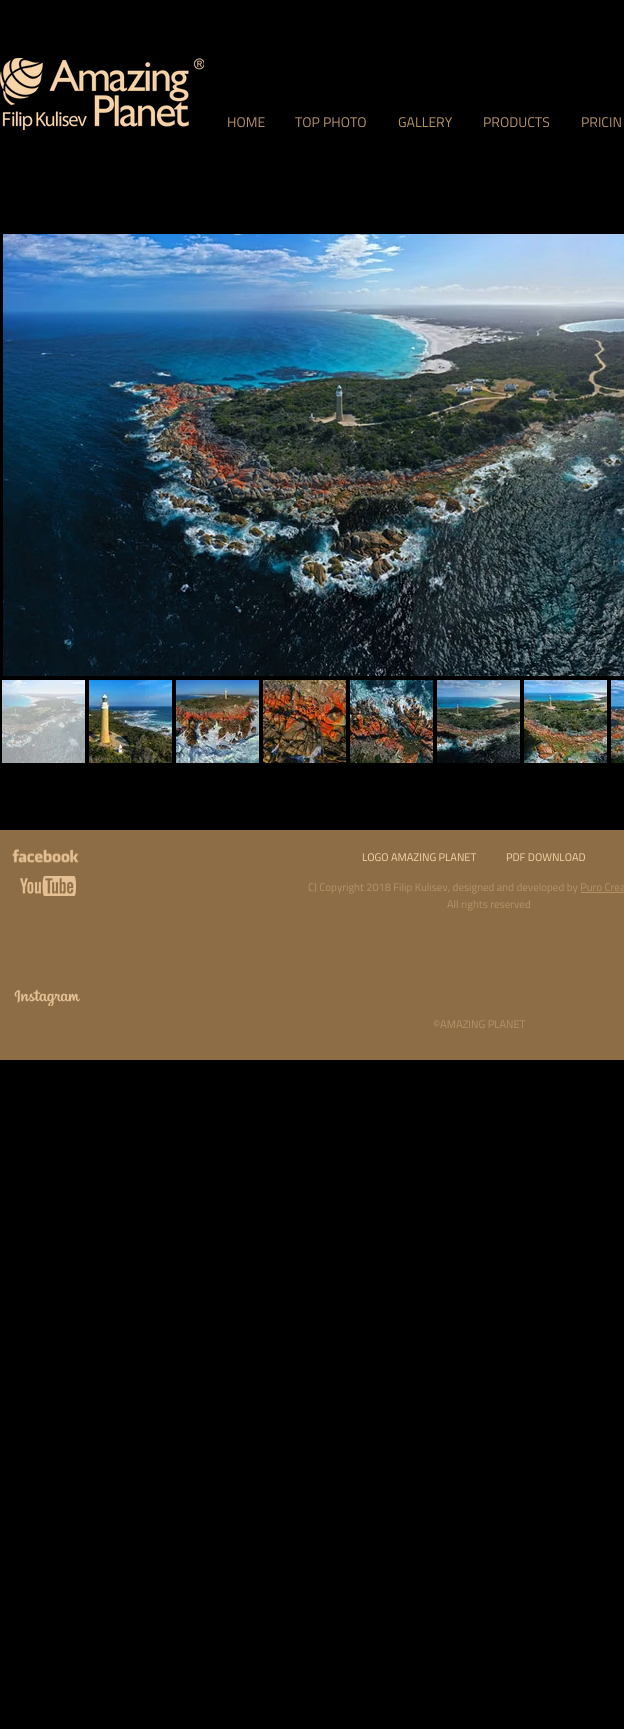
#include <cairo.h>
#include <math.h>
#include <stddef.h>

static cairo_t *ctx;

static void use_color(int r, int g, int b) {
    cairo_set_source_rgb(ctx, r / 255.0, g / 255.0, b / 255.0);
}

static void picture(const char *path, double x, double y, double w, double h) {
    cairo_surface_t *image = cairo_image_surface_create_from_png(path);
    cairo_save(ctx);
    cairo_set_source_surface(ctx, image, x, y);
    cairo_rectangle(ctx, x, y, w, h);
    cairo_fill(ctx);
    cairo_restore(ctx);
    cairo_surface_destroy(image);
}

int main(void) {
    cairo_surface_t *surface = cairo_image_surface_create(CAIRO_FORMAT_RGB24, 624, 1729);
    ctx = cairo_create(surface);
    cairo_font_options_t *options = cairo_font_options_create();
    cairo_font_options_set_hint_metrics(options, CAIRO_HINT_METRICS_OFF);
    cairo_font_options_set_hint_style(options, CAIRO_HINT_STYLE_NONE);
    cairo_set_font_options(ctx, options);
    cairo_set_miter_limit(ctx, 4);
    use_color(0, 0, 0);
    cairo_paint(ctx);
    picture("img1.png", 0, 58, 204, 72);
    cairo_select_font_face(ctx, "Titillium Web", CAIRO_FONT_SLANT_NORMAL, CAIRO_FONT_WEIGHT_NORMAL);
    cairo_set_font_size(ctx, 14);
    use_color(182, 147, 104);
    cairo_move_to(ctx, 227, 127);
    cairo_show_text(ctx, "HOME");
    cairo_move_to(ctx, 295, 127);
    cairo_show_text(ctx, "TOP PHOTO");
    cairo_move_to(ctx, 398, 127);
    cairo_show_text(ctx, "GALLERY");
    cairo_move_to(ctx, 483, 127);
    cairo_show_text(ctx, "PRODUCTS");
    cairo_move_to(ctx, 581, 127);
    cairo_show_text(ctx, "PRICIN");
    picture("img2.png", 3, 234, 621, 442);
    picture("img3.png", 2, 680, 83, 83);
    picture("img4.png", 89, 680, 83, 83);
    picture("img5.png", 176, 680, 83, 83);
    picture("img6.png", 263, 680, 83, 83);
    picture("img7.png", 350, 680, 83, 83);
    picture("img8.png", 437, 680, 83, 83);
    picture("img9.png", 524, 680, 83, 83);
    picture("img10.png", 611, 680, 13, 83);
    use_color(141, 109, 69);
    cairo_rectangle(ctx, 0, 830, 624, 230);
    cairo_fill(ctx);
    picture("img11.png", 12, 848, 67, 15);
    cairo_set_font_size(ctx, 11);
    use_color(248, 214, 170);
    cairo_move_to(ctx, 362, 861);
    cairo_show_text(ctx, "LOGO AMAZING PLANET");
    cairo_move_to(ctx, 506, 861);
    cairo_show_text(ctx, "PDF DOWNLOAD");
    picture("img12.png", 20, 876, 56, 20);
    use_color(182, 147, 104);
    cairo_move_to(ctx, 308, 891);
    cairo_show_text(ctx, "C) Copyright 2018 Filip Kulisev, designed and developed by Puro Crea");
    cairo_rectangle(ctx, 581, 892, 43, 1);
    cairo_fill(ctx);
    cairo_move_to(ctx, 447, 908);
    cairo_show_text(ctx, "All rights reserved");
    picture("img13.png", 14, 990, 66, 16);
    cairo_move_to(ctx, 433, 1028);
    cairo_show_text(ctx, "©AMAZING PLANET");
    cairo_surface_write_to_png(surface, "result.png");
    cairo_font_options_destroy(options);
    cairo_destroy(ctx);
    cairo_surface_destroy(surface);
    return 0;
}
